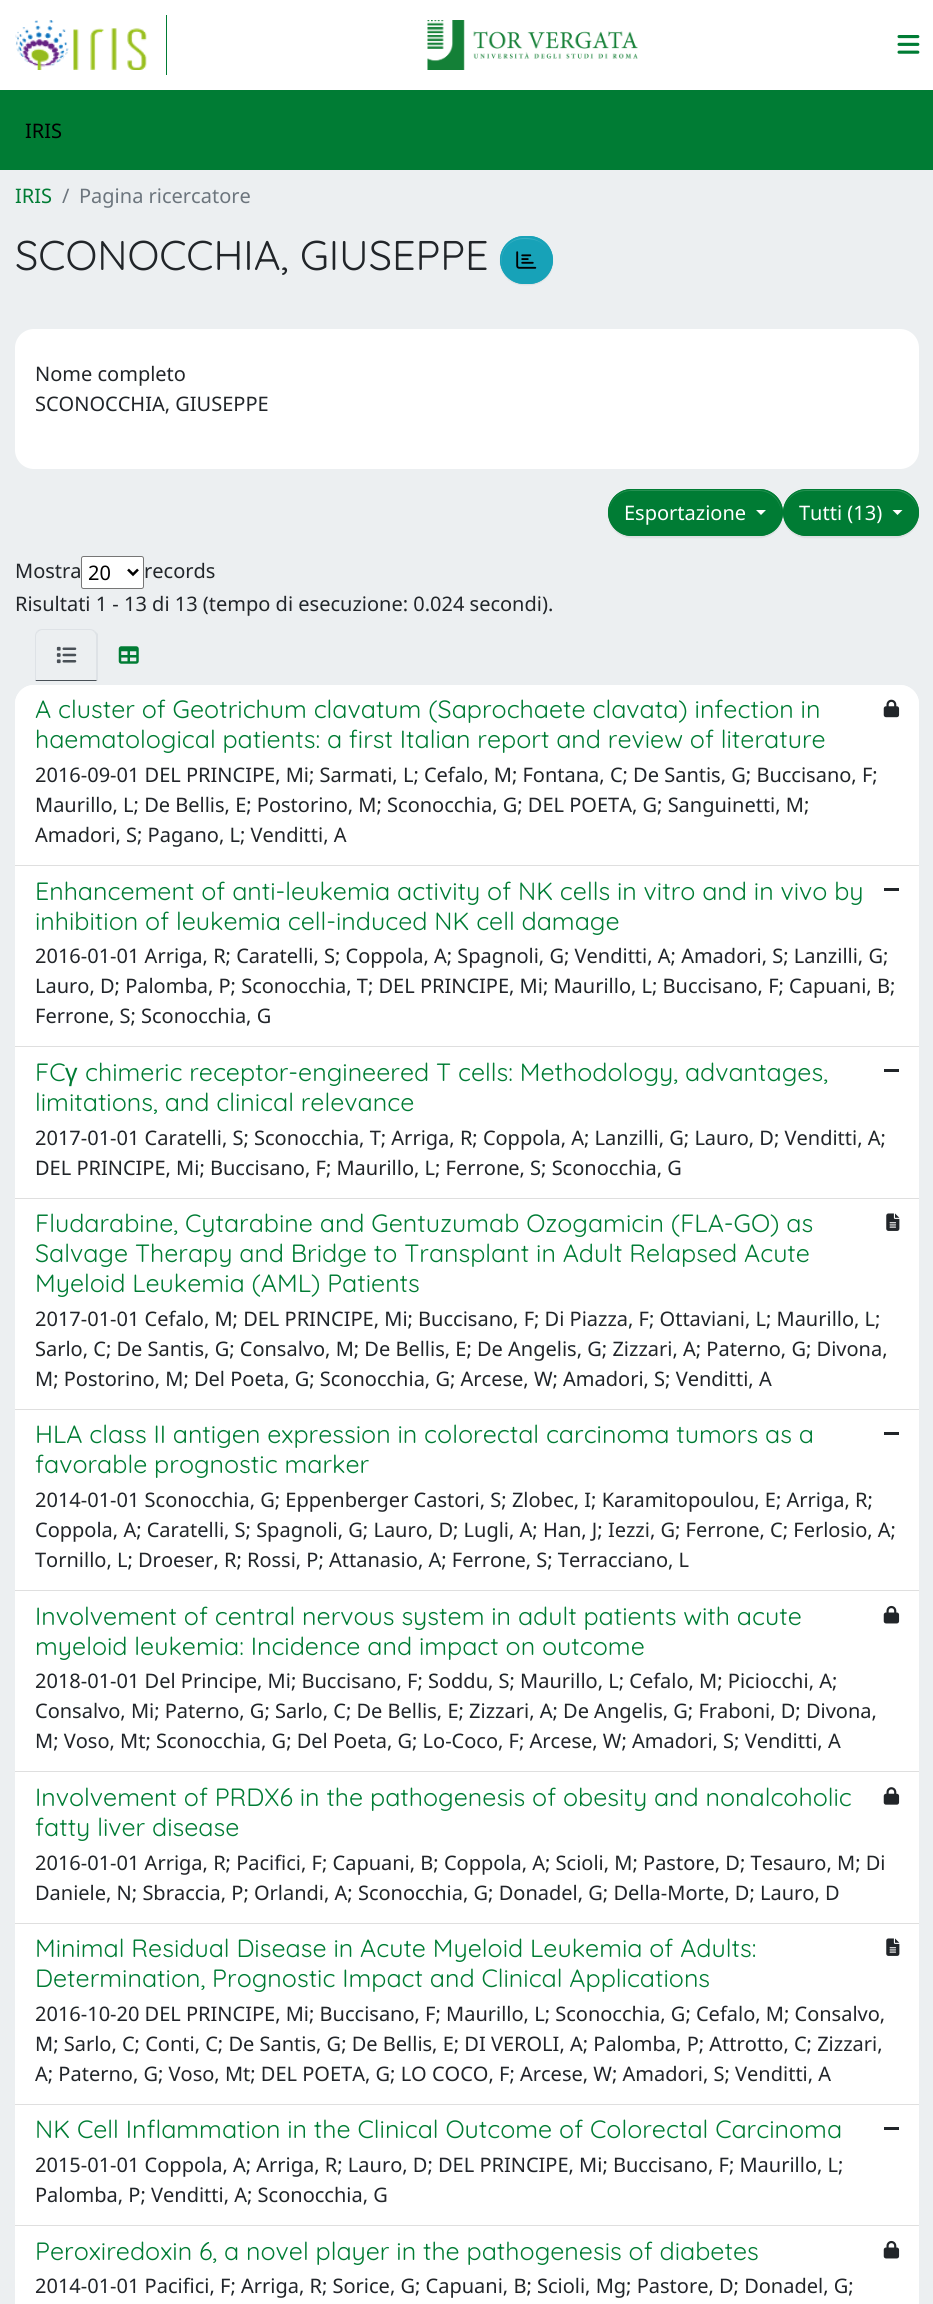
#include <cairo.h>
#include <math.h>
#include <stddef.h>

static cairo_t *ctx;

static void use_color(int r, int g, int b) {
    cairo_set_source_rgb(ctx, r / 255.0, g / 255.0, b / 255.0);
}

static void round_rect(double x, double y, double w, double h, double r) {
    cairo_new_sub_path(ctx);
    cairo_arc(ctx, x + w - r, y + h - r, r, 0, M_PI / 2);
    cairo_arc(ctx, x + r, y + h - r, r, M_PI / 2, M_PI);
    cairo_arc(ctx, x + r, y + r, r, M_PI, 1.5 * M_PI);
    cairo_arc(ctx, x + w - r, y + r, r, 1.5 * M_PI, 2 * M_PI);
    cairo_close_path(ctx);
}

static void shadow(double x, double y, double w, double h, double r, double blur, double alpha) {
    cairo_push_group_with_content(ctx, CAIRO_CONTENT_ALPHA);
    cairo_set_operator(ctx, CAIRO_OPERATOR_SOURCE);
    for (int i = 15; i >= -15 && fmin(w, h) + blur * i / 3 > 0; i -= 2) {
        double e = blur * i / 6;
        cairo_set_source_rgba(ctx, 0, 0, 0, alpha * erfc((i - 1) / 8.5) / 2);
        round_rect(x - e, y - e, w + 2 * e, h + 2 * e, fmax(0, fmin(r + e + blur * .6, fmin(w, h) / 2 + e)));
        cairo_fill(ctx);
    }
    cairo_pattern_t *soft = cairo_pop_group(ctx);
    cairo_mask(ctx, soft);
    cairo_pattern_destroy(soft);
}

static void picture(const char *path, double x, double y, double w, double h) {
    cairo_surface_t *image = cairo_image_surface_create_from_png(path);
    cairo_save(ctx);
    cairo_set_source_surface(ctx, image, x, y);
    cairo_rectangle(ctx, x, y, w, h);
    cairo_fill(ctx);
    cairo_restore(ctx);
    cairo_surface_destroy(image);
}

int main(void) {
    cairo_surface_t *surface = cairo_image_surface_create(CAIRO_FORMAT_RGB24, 933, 2304);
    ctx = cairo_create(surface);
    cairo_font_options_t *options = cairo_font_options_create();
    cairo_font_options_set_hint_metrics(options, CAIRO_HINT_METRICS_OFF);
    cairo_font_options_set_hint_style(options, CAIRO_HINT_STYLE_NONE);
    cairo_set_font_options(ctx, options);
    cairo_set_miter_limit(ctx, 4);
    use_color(236, 239, 241);
    cairo_paint(ctx);
    use_color(255, 255, 255);
    cairo_rectangle(ctx, 0, 0, 933, 90);
    cairo_fill(ctx);
    use_color(0, 124, 52);
    cairo_rectangle(ctx, 166, 15, 1, 60);
    cairo_fill(ctx);
    picture("img1.png", 15, 20, 132, 50);
    picture("img2.png", 427, 20, 211, 50);
    picture("img3.png", 897, 35, 23, 19);
    cairo_rectangle(ctx, 0, 90, 933, 80);
    cairo_fill(ctx);
    cairo_select_font_face(ctx, "Noto Sans", CAIRO_FONT_SLANT_NORMAL, CAIRO_FONT_WEIGHT_NORMAL);
    cairo_set_font_size(ctx, 20);
    use_color(0, 0, 0);
    cairo_move_to(ctx, 25, 138);
    cairo_show_text(ctx, "IRIS");
    use_color(0, 124, 52);
    cairo_move_to(ctx, 15, 203);
    cairo_show_text(ctx, "IRIS");
    use_color(108, 117, 125);
    cairo_move_to(ctx, 62, 203);
    cairo_show_text(ctx, "/");
    cairo_move_to(ctx, 79, 203);
    cairo_show_text(ctx, "Pagina ricercatore");
    cairo_select_font_face(ctx, "Quicksand Light", CAIRO_FONT_SLANT_NORMAL, CAIRO_FONT_WEIGHT_NORMAL);
    cairo_set_font_size(ctx, 41.5);
    use_color(33, 37, 41);
    cairo_move_to(ctx, 15, 270);
    cairo_show_text(ctx, "SCONOCCHIA, GIUSEPPE");
    use_color(0, 0, 0);
    shadow(500, 238, 53, 47, 23.5, 0.5, 0.07);
    use_color(23, 162, 184);
    round_rect(500, 236, 53, 48, 24);
    cairo_fill(ctx);
    use_color(58, 176, 195);
    cairo_new_path(ctx);
    cairo_move_to(ctx, 524, 239);
    cairo_curve_to(ctx, 532, 239, 540, 240, 546, 247);
    cairo_curve_to(ctx, 538, 237, 521, 235, 511, 242);
    cairo_curve_to(ctx, 500, 249, 498, 264, 506, 274);
    cairo_curve_to(ctx, 496, 261, 503, 239, 524, 239);
    cairo_close_path(ctx);
    cairo_fill(ctx);
    round_rect(500.5, 236.5, 52, 47, 23.5);
    use_color(23, 162, 184);
    cairo_set_line_width(ctx, 1);
    cairo_stroke(ctx);
    picture("img4.png", 516, 251, 21, 18);
    use_color(255, 255, 255);
    round_rect(15, 329, 904, 140, 19);
    cairo_fill(ctx);
    cairo_select_font_face(ctx, "Noto Sans", CAIRO_FONT_SLANT_NORMAL, CAIRO_FONT_WEIGHT_NORMAL);
    cairo_set_font_size(ctx, 20);
    use_color(33, 37, 41);
    cairo_move_to(ctx, 35, 381);
    cairo_show_text(ctx, "Nome completo");
    cairo_move_to(ctx, 35, 411);
    cairo_show_text(ctx, "SCONOCCHIA, GIUSEPPE");
    use_color(0, 0, 0);
    shadow(783, 490, 136, 48, 24, 0.5, 0.07);
    use_color(0, 124, 52);
    round_rect(783, 489, 136, 47, 23.5);
    cairo_fill(ctx);
    use_color(38, 144, 82);
    cairo_new_path(ctx);
    cairo_move_to(ctx, 806, 491);
    cairo_line_to(ctx, 895, 491);
    cairo_curve_to(ctx, 907, 491, 918, 501, 918, 513);
    cairo_curve_to(ctx, 918, 502, 911, 493, 900, 490);
    cairo_line_to(ctx, 881, 490);
    cairo_line_to(ctx, 802, 490);
    cairo_curve_to(ctx, 791, 493, 784, 502, 784, 513);
    cairo_curve_to(ctx, 784, 501, 794, 491, 806, 491);
    cairo_close_path(ctx);
    cairo_fill(ctx);
    round_rect(783.5, 489.5, 135, 46, 23);
    use_color(0, 124, 52);
    cairo_stroke(ctx);
    use_color(0, 0, 0);
    shadow(608, 490, 175, 48, 24, 0.5, 0.07);
    use_color(0, 124, 52);
    round_rect(608, 489, 175, 47, 23.5);
    cairo_fill(ctx);
    use_color(38, 144, 82);
    cairo_new_path(ctx);
    cairo_move_to(ctx, 631, 491);
    cairo_line_to(ctx, 759, 491);
    cairo_curve_to(ctx, 771, 491, 781, 501, 781, 513);
    cairo_line_to(ctx, 781, 512);
    cairo_curve_to(ctx, 781, 500, 771, 490, 758, 490);
    cairo_line_to(ctx, 632, 490);
    cairo_curve_to(ctx, 619, 490, 609, 500, 609, 512);
    cairo_line_to(ctx, 609, 513);
    cairo_curve_to(ctx, 609, 501, 619, 491, 631, 491);
    cairo_close_path(ctx);
    cairo_fill(ctx);
    round_rect(608.5, 489.5, 174, 46, 23);
    use_color(0, 124, 52);
    cairo_stroke(ctx);
    use_color(255, 255, 255);
    cairo_move_to(ctx, 624, 520);
    cairo_show_text(ctx, "Esportazione");
    cairo_new_path(ctx);
    cairo_move_to(ctx, 756, 510);
    cairo_line_to(ctx, 766, 510);
    cairo_line_to(ctx, 761, 515);
    cairo_close_path(ctx);
    cairo_fill(ctx);
    cairo_move_to(ctx, 799, 520);
    cairo_show_text(ctx, "Tutti (13)");
    cairo_new_path(ctx);
    cairo_move_to(ctx, 892.5, 510);
    cairo_line_to(ctx, 902.5, 510);
    cairo_line_to(ctx, 897.5, 515);
    cairo_close_path(ctx);
    cairo_fill(ctx);
    use_color(33, 37, 41);
    cairo_move_to(ctx, 15, 578);
    cairo_show_text(ctx, "Mostra");
    use_color(255, 255, 255);
    round_rect(81.5, 556.5, 62, 32, 2);
    cairo_fill_preserve(ctx);
    use_color(118, 118, 118);
    cairo_stroke(ctx);
    cairo_new_path(ctx);
    cairo_move_to(ctx, 128, 569.5);
    cairo_line_to(ctx, 133, 574.5);
    cairo_line_to(ctx, 138, 569.5);
    use_color(0, 0, 0);
    cairo_set_line_width(ctx, 2.5);
    cairo_stroke(ctx);
    cairo_move_to(ctx, 88, 580);
    cairo_show_text(ctx, "20");
    use_color(33, 37, 41);
    cairo_move_to(ctx, 144, 578);
    cairo_show_text(ctx, "records");
    cairo_move_to(ctx, 15, 611);
    cairo_show_text(ctx, "Risultati 1 - 13 di 13 (tempo di esecuzione: 0.024 secondi).");
    use_color(222, 226, 230);
    cairo_new_path(ctx);
    cairo_move_to(ctx, 42, 629);
    cairo_curve_to(ctx, 40, 629, 38, 630, 37, 631);
    cairo_line_to(ctx, 38, 632);
    cairo_curve_to(ctx, 39, 631, 41, 630, 42, 630);
    cairo_line_to(ctx, 90, 630);
    cairo_curve_to(ctx, 92, 630, 93, 631, 94, 632);
    cairo_line_to(ctx, 95, 631);
    cairo_curve_to(ctx, 94, 630, 92, 629, 90, 629);
    cairo_close_path(ctx);
    cairo_fill(ctx);
    cairo_new_path(ctx);
    cairo_move_to(ctx, 95, 631);
    cairo_line_to(ctx, 98, 634);
    cairo_line_to(ctx, 98, 681);
    cairo_line_to(ctx, 96, 680);
    cairo_line_to(ctx, 96, 636);
    cairo_curve_to(ctx, 96, 635, 95, 633, 94, 632);
    cairo_close_path(ctx);
    cairo_fill(ctx);
    use_color(73, 80, 87);
    cairo_new_path(ctx);
    cairo_move_to(ctx, 97, 681);
    cairo_line_to(ctx, 35, 681);
    cairo_line_to(ctx, 36, 680);
    cairo_line_to(ctx, 96, 680);
    cairo_close_path(ctx);
    cairo_fill(ctx);
    use_color(222, 226, 230);
    cairo_new_path(ctx);
    cairo_move_to(ctx, 35, 636);
    cairo_line_to(ctx, 35, 681);
    cairo_line_to(ctx, 36, 680);
    cairo_line_to(ctx, 36, 636);
    cairo_curve_to(ctx, 36, 634, 37, 633, 38, 632);
    cairo_line_to(ctx, 37, 631);
    cairo_curve_to(ctx, 36, 632, 35, 634, 35, 636);
    cairo_close_path(ctx);
    cairo_fill(ctx);
    picture("img5.png", 56, 646, 21, 18);
    picture("img6.png", 118, 646, 21, 18);
    use_color(255, 255, 255);
    round_rect(15, 685, 904, 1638, 19);
    cairo_fill(ctx);
    cairo_new_path(ctx);
    cairo_move_to(ctx, 34, 685);
    cairo_line_to(ctx, 900, 685);
    cairo_curve_to(ctx, 910.5, 685, 919, 693.5, 919, 704);
    cairo_line_to(ctx, 919, 866);
    cairo_line_to(ctx, 15, 866);
    cairo_line_to(ctx, 15, 704);
    cairo_curve_to(ctx, 15, 693.5, 23.5, 685, 34, 685);
    cairo_close_path(ctx);
    cairo_fill(ctx);
    use_color(223, 223, 223);
    cairo_rectangle(ctx, 15, 865, 904, 1);
    cairo_fill(ctx);
    cairo_select_font_face(ctx, "Quicksand Light", CAIRO_FONT_SLANT_NORMAL, CAIRO_FONT_WEIGHT_NORMAL);
    cairo_set_font_size(ctx, 25);
    use_color(0, 124, 52);
    cairo_move_to(ctx, 35, 718);
    cairo_show_text(ctx, "A cluster of Geotrichum clavatum (Saprochaete clavata) infection in");
    cairo_move_to(ctx, 35, 748);
    cairo_show_text(ctx, "haematological patients: a first Italian report and review of literature");
    picture("img7.png", 883, 699, 17, 19);
    cairo_select_font_face(ctx, "Noto Sans", CAIRO_FONT_SLANT_NORMAL, CAIRO_FONT_WEIGHT_NORMAL);
    cairo_set_font_size(ctx, 20);
    use_color(33, 37, 41);
    cairo_move_to(ctx, 35, 782);
    cairo_show_text(ctx, "2016-09-01 DEL PRINCIPE, Mi; Sarmati, L; Cefalo, M; Fontana, C; De Santis, G; Buccisano, F;");
    cairo_move_to(ctx, 35, 812);
    cairo_show_text(ctx, "Maurillo, L; De Bellis, E; Postorino, M; Sconocchia, G; DEL POETA, G; Sanguinetti, M;");
    cairo_move_to(ctx, 35, 842);
    cairo_show_text(ctx, "Amadori, S; Pagano, L; Venditti, A");
    use_color(223, 223, 223);
    cairo_rectangle(ctx, 15, 1046, 904, 1);
    cairo_fill(ctx);
    cairo_select_font_face(ctx, "Quicksand Light", CAIRO_FONT_SLANT_NORMAL, CAIRO_FONT_WEIGHT_NORMAL);
    cairo_set_font_size(ctx, 25);
    use_color(0, 124, 52);
    cairo_move_to(ctx, 35, 900);
    cairo_show_text(ctx, "Enhancement of anti-leukemia activity of NK cells in vitro and in vivo by");
    cairo_move_to(ctx, 35, 930);
    cairo_show_text(ctx, "inhibition of leukemia cell-induced NK cell damage");
    use_color(33, 37, 41);
    cairo_rectangle(ctx, 884, 888, 15, 3);
    cairo_fill(ctx);
    cairo_select_font_face(ctx, "Noto Sans", CAIRO_FONT_SLANT_NORMAL, CAIRO_FONT_WEIGHT_NORMAL);
    cairo_set_font_size(ctx, 20);
    cairo_move_to(ctx, 35, 963);
    cairo_show_text(ctx, "2016-01-01 Arriga, R; Caratelli, S; Coppola, A; Spagnoli, G; Venditti, A; Amadori, S; Lanzilli, G;");
    cairo_move_to(ctx, 35, 993);
    cairo_show_text(ctx, "Lauro, D; Palomba, P; Sconocchia, T; DEL PRINCIPE, Mi; Maurillo, L; Buccisano, F; Capuani, B;");
    cairo_move_to(ctx, 35, 1023);
    cairo_show_text(ctx, "Ferrone, S; Sconocchia, G");
    use_color(223, 223, 223);
    cairo_rectangle(ctx, 15, 1198, 904, 1);
    cairo_fill(ctx);
    cairo_select_font_face(ctx, "Quicksand Light", CAIRO_FONT_SLANT_NORMAL, CAIRO_FONT_WEIGHT_NORMAL);
    cairo_set_font_size(ctx, 25);
    use_color(0, 124, 52);
    cairo_move_to(ctx, 35, 1081);
    cairo_show_text(ctx, "FC");
    cairo_select_font_face(ctx, "Liberation Sans", CAIRO_FONT_SLANT_NORMAL, CAIRO_FONT_WEIGHT_NORMAL);
    cairo_move_to(ctx, 65, 1081);
    cairo_show_text(ctx, "γ");
    cairo_select_font_face(ctx, "Quicksand Light", CAIRO_FONT_SLANT_NORMAL, CAIRO_FONT_WEIGHT_NORMAL);
    cairo_move_to(ctx, 85, 1081);
    cairo_show_text(ctx, "chimeric receptor-engineered T cells: Methodology, advantages,");
    cairo_move_to(ctx, 35, 1111);
    cairo_show_text(ctx, "limitations, and clinical relevance");
    use_color(33, 37, 41);
    cairo_rectangle(ctx, 884, 1069, 15, 3);
    cairo_fill(ctx);
    cairo_select_font_face(ctx, "Noto Sans", CAIRO_FONT_SLANT_NORMAL, CAIRO_FONT_WEIGHT_NORMAL);
    cairo_set_font_size(ctx, 20);
    cairo_move_to(ctx, 35, 1145);
    cairo_show_text(ctx, "2017-01-01 Caratelli, S; Sconocchia, T; Arriga, R; Coppola, A; Lanzilli, G; Lauro, D; Venditti, A;");
    cairo_move_to(ctx, 35, 1175);
    cairo_show_text(ctx, "DEL PRINCIPE, Mi; Buccisano, F; Maurillo, L; Ferrone, S; Sconocchia, G");
    use_color(223, 223, 223);
    cairo_rectangle(ctx, 15, 1409, 904, 1);
    cairo_fill(ctx);
    cairo_select_font_face(ctx, "Quicksand Light", CAIRO_FONT_SLANT_NORMAL, CAIRO_FONT_WEIGHT_NORMAL);
    cairo_set_font_size(ctx, 25);
    use_color(0, 124, 52);
    cairo_move_to(ctx, 35, 1232);
    cairo_show_text(ctx, "Fludarabine, Cytarabine and Gentuzumab Ozogamicin (FLA-GO) as");
    cairo_move_to(ctx, 35, 1262);
    cairo_show_text(ctx, "Salvage Therapy and Bridge to Transplant in Adult Relapsed Acute");
    cairo_move_to(ctx, 35, 1292);
    cairo_show_text(ctx, "Myeloid Leukemia (AML) Patients");
    picture("img8.png", 886, 1213, 14, 18);
    cairo_select_font_face(ctx, "Noto Sans", CAIRO_FONT_SLANT_NORMAL, CAIRO_FONT_WEIGHT_NORMAL);
    cairo_set_font_size(ctx, 20);
    use_color(33, 37, 41);
    cairo_move_to(ctx, 35, 1326);
    cairo_show_text(ctx, "2017-01-01 Cefalo, M; DEL PRINCIPE, Mi; Buccisano, F; Di Piazza, F; Ottaviani, L; Maurillo, L;");
    cairo_move_to(ctx, 35, 1356);
    cairo_show_text(ctx, "Sarlo, C; De Santis, G; Consalvo, M; De Bellis, E; De Angelis, G; Zizzari, A; Paterno, G; Divona,");
    cairo_move_to(ctx, 35, 1386);
    cairo_show_text(ctx, "M; Postorino, M; Del Poeta, G; Sconocchia, G; Arcese, W; Amadori, S; Venditti, A");
    use_color(223, 223, 223);
    cairo_rectangle(ctx, 15, 1590, 904, 1);
    cairo_fill(ctx);
    cairo_select_font_face(ctx, "Quicksand Light", CAIRO_FONT_SLANT_NORMAL, CAIRO_FONT_WEIGHT_NORMAL);
    cairo_set_font_size(ctx, 25);
    use_color(0, 124, 52);
    cairo_move_to(ctx, 35, 1443);
    cairo_show_text(ctx, "HLA class II antigen expression in colorectal carcinoma tumors as a");
    cairo_move_to(ctx, 35, 1473);
    cairo_show_text(ctx, "favorable prognostic marker");
    use_color(33, 37, 41);
    cairo_rectangle(ctx, 884, 1432, 15, 3);
    cairo_fill(ctx);
    cairo_select_font_face(ctx, "Noto Sans", CAIRO_FONT_SLANT_NORMAL, CAIRO_FONT_WEIGHT_NORMAL);
    cairo_set_font_size(ctx, 20);
    cairo_move_to(ctx, 35, 1507);
    cairo_show_text(ctx, "2014-01-01 Sconocchia, G; Eppenberger Castori, S; Zlobec, I; Karamitopoulou, E; Arriga, R;");
    cairo_move_to(ctx, 35, 1537);
    cairo_show_text(ctx, "Coppola, A; Caratelli, S; Spagnoli, G; Lauro, D; Lugli, A; Han, J; Iezzi, G; Ferrone, C; Ferlosio, A;");
    cairo_move_to(ctx, 35, 1567);
    cairo_show_text(ctx, "Tornillo, L; Droeser, R; Rossi, P; Attanasio, A; Ferrone, S; Terracciano, L");
    use_color(223, 223, 223);
    cairo_rectangle(ctx, 15, 1771, 904, 1);
    cairo_fill(ctx);
    cairo_select_font_face(ctx, "Quicksand Light", CAIRO_FONT_SLANT_NORMAL, CAIRO_FONT_WEIGHT_NORMAL);
    cairo_set_font_size(ctx, 25);
    use_color(0, 124, 52);
    cairo_move_to(ctx, 35, 1625);
    cairo_show_text(ctx, "Involvement of central nervous system in adult patients with acute");
    cairo_move_to(ctx, 35, 1655);
    cairo_show_text(ctx, "myeloid leukemia: Incidence and impact on outcome");
    picture("img9.png", 883, 1605, 17, 19);
    cairo_select_font_face(ctx, "Noto Sans", CAIRO_FONT_SLANT_NORMAL, CAIRO_FONT_WEIGHT_NORMAL);
    cairo_set_font_size(ctx, 20);
    use_color(33, 37, 41);
    cairo_move_to(ctx, 35, 1688);
    cairo_show_text(ctx, "2018-01-01 Del Principe, Mi; Buccisano, F; Soddu, S; Maurillo, L; Cefalo, M; Piciocchi, A;");
    cairo_move_to(ctx, 35, 1718);
    cairo_show_text(ctx, "Consalvo, Mi; Paterno, G; Sarlo, C; De Bellis, E; Zizzari, A; De Angelis, G; Fraboni, D; Divona,");
    cairo_move_to(ctx, 35, 1748);
    cairo_show_text(ctx, "M; Voso, Mt; Sconocchia, G; Del Poeta, G; Lo-Coco, F; Arcese, W; Amadori, S; Venditti, A");
    use_color(223, 223, 223);
    cairo_rectangle(ctx, 15, 1923, 904, 1);
    cairo_fill(ctx);
    cairo_select_font_face(ctx, "Quicksand Light", CAIRO_FONT_SLANT_NORMAL, CAIRO_FONT_WEIGHT_NORMAL);
    cairo_set_font_size(ctx, 25);
    use_color(0, 124, 52);
    cairo_move_to(ctx, 35, 1806);
    cairo_show_text(ctx, "Involvement of PRDX6 in the pathogenesis of obesity and nonalcoholic");
    cairo_move_to(ctx, 35, 1836);
    cairo_show_text(ctx, "fatty liver disease");
    picture("img10.png", 883, 1787, 17, 18);
    cairo_select_font_face(ctx, "Noto Sans", CAIRO_FONT_SLANT_NORMAL, CAIRO_FONT_WEIGHT_NORMAL);
    cairo_set_font_size(ctx, 20);
    use_color(33, 37, 41);
    cairo_move_to(ctx, 35, 1870);
    cairo_show_text(ctx, "2016-01-01 Arriga, R; Pacifici, F; Capuani, B; Coppola, A; Scioli, M; Pastore, D; Tesauro, M; Di");
    cairo_move_to(ctx, 35, 1900);
    cairo_show_text(ctx, "Daniele, N; Sbraccia, P; Orlandi, A; Sconocchia, G; Donadel, G; Della-Morte, D; Lauro, D");
    use_color(223, 223, 223);
    cairo_rectangle(ctx, 15, 2104, 904, 1);
    cairo_fill(ctx);
    cairo_select_font_face(ctx, "Quicksand Light", CAIRO_FONT_SLANT_NORMAL, CAIRO_FONT_WEIGHT_NORMAL);
    cairo_set_font_size(ctx, 25);
    use_color(0, 124, 52);
    cairo_move_to(ctx, 35, 1957);
    cairo_show_text(ctx, "Minimal Residual Disease in Acute Myeloid Leukemia of Adults:");
    cairo_move_to(ctx, 35, 1987);
    cairo_show_text(ctx, "Determination, Prognostic Impact and Clinical Applications");
    picture("img8.png", 886, 1938, 14, 18);
    cairo_select_font_face(ctx, "Noto Sans", CAIRO_FONT_SLANT_NORMAL, CAIRO_FONT_WEIGHT_NORMAL);
    cairo_set_font_size(ctx, 20);
    use_color(33, 37, 41);
    cairo_move_to(ctx, 35, 2021);
    cairo_show_text(ctx, "2016-10-20 DEL PRINCIPE, Mi; Buccisano, F; Maurillo, L; Sconocchia, G; Cefalo, M; Consalvo,");
    cairo_move_to(ctx, 35, 2051);
    cairo_show_text(ctx, "M; Sarlo, C; Conti, C; De Santis, G; De Bellis, E; DI VEROLI, A; Palomba, P; Attrotto, C; Zizzari,");
    cairo_move_to(ctx, 35, 2081);
    cairo_show_text(ctx, "A; Paterno, G; Voso, Mt; DEL POETA, G; LO COCO, F; Arcese, W; Amadori, S; Venditti, A");
    use_color(223, 223, 223);
    cairo_rectangle(ctx, 15, 2225, 904, 1);
    cairo_fill(ctx);
    cairo_select_font_face(ctx, "Quicksand Light", CAIRO_FONT_SLANT_NORMAL, CAIRO_FONT_WEIGHT_NORMAL);
    cairo_set_font_size(ctx, 25);
    use_color(0, 124, 52);
    cairo_move_to(ctx, 35, 2138);
    cairo_show_text(ctx, "NK Cell Inflammation in the Clinical Outcome of Colorectal Carcinoma");
    use_color(33, 37, 41);
    cairo_rectangle(ctx, 884, 2127, 15, 3);
    cairo_fill(ctx);
    cairo_select_font_face(ctx, "Noto Sans", CAIRO_FONT_SLANT_NORMAL, CAIRO_FONT_WEIGHT_NORMAL);
    cairo_set_font_size(ctx, 20);
    cairo_move_to(ctx, 35, 2172);
    cairo_show_text(ctx, "2015-01-01 Coppola, A; Arriga, R; Lauro, D; DEL PRINCIPE, Mi; Buccisano, F; Maurillo, L;");
    cairo_move_to(ctx, 35, 2202);
    cairo_show_text(ctx, "Palomba, P; Venditti, A; Sconocchia, G");
    cairo_select_font_face(ctx, "Quicksand Light", CAIRO_FONT_SLANT_NORMAL, CAIRO_FONT_WEIGHT_NORMAL);
    cairo_set_font_size(ctx, 25);
    use_color(0, 124, 52);
    cairo_move_to(ctx, 35, 2260);
    cairo_show_text(ctx, "Peroxiredoxin 6, a novel player in the pathogenesis of diabetes");
    picture("img9.png", 883, 2240, 17, 19);
    cairo_select_font_face(ctx, "Noto Sans", CAIRO_FONT_SLANT_NORMAL, CAIRO_FONT_WEIGHT_NORMAL);
    cairo_set_font_size(ctx, 20);
    use_color(33, 37, 41);
    cairo_move_to(ctx, 35, 2293);
    cairo_show_text(ctx, "2014-01-01 Pacifici, F; Arriga, R; Sorice, G; Capuani, B; Scioli, Mg; Pastore, D; Donadel, G;");
    cairo_surface_write_to_png(surface, "result.png");
    cairo_font_options_destroy(options);
    cairo_destroy(ctx);
    cairo_surface_destroy(surface);
    return 0;
}
